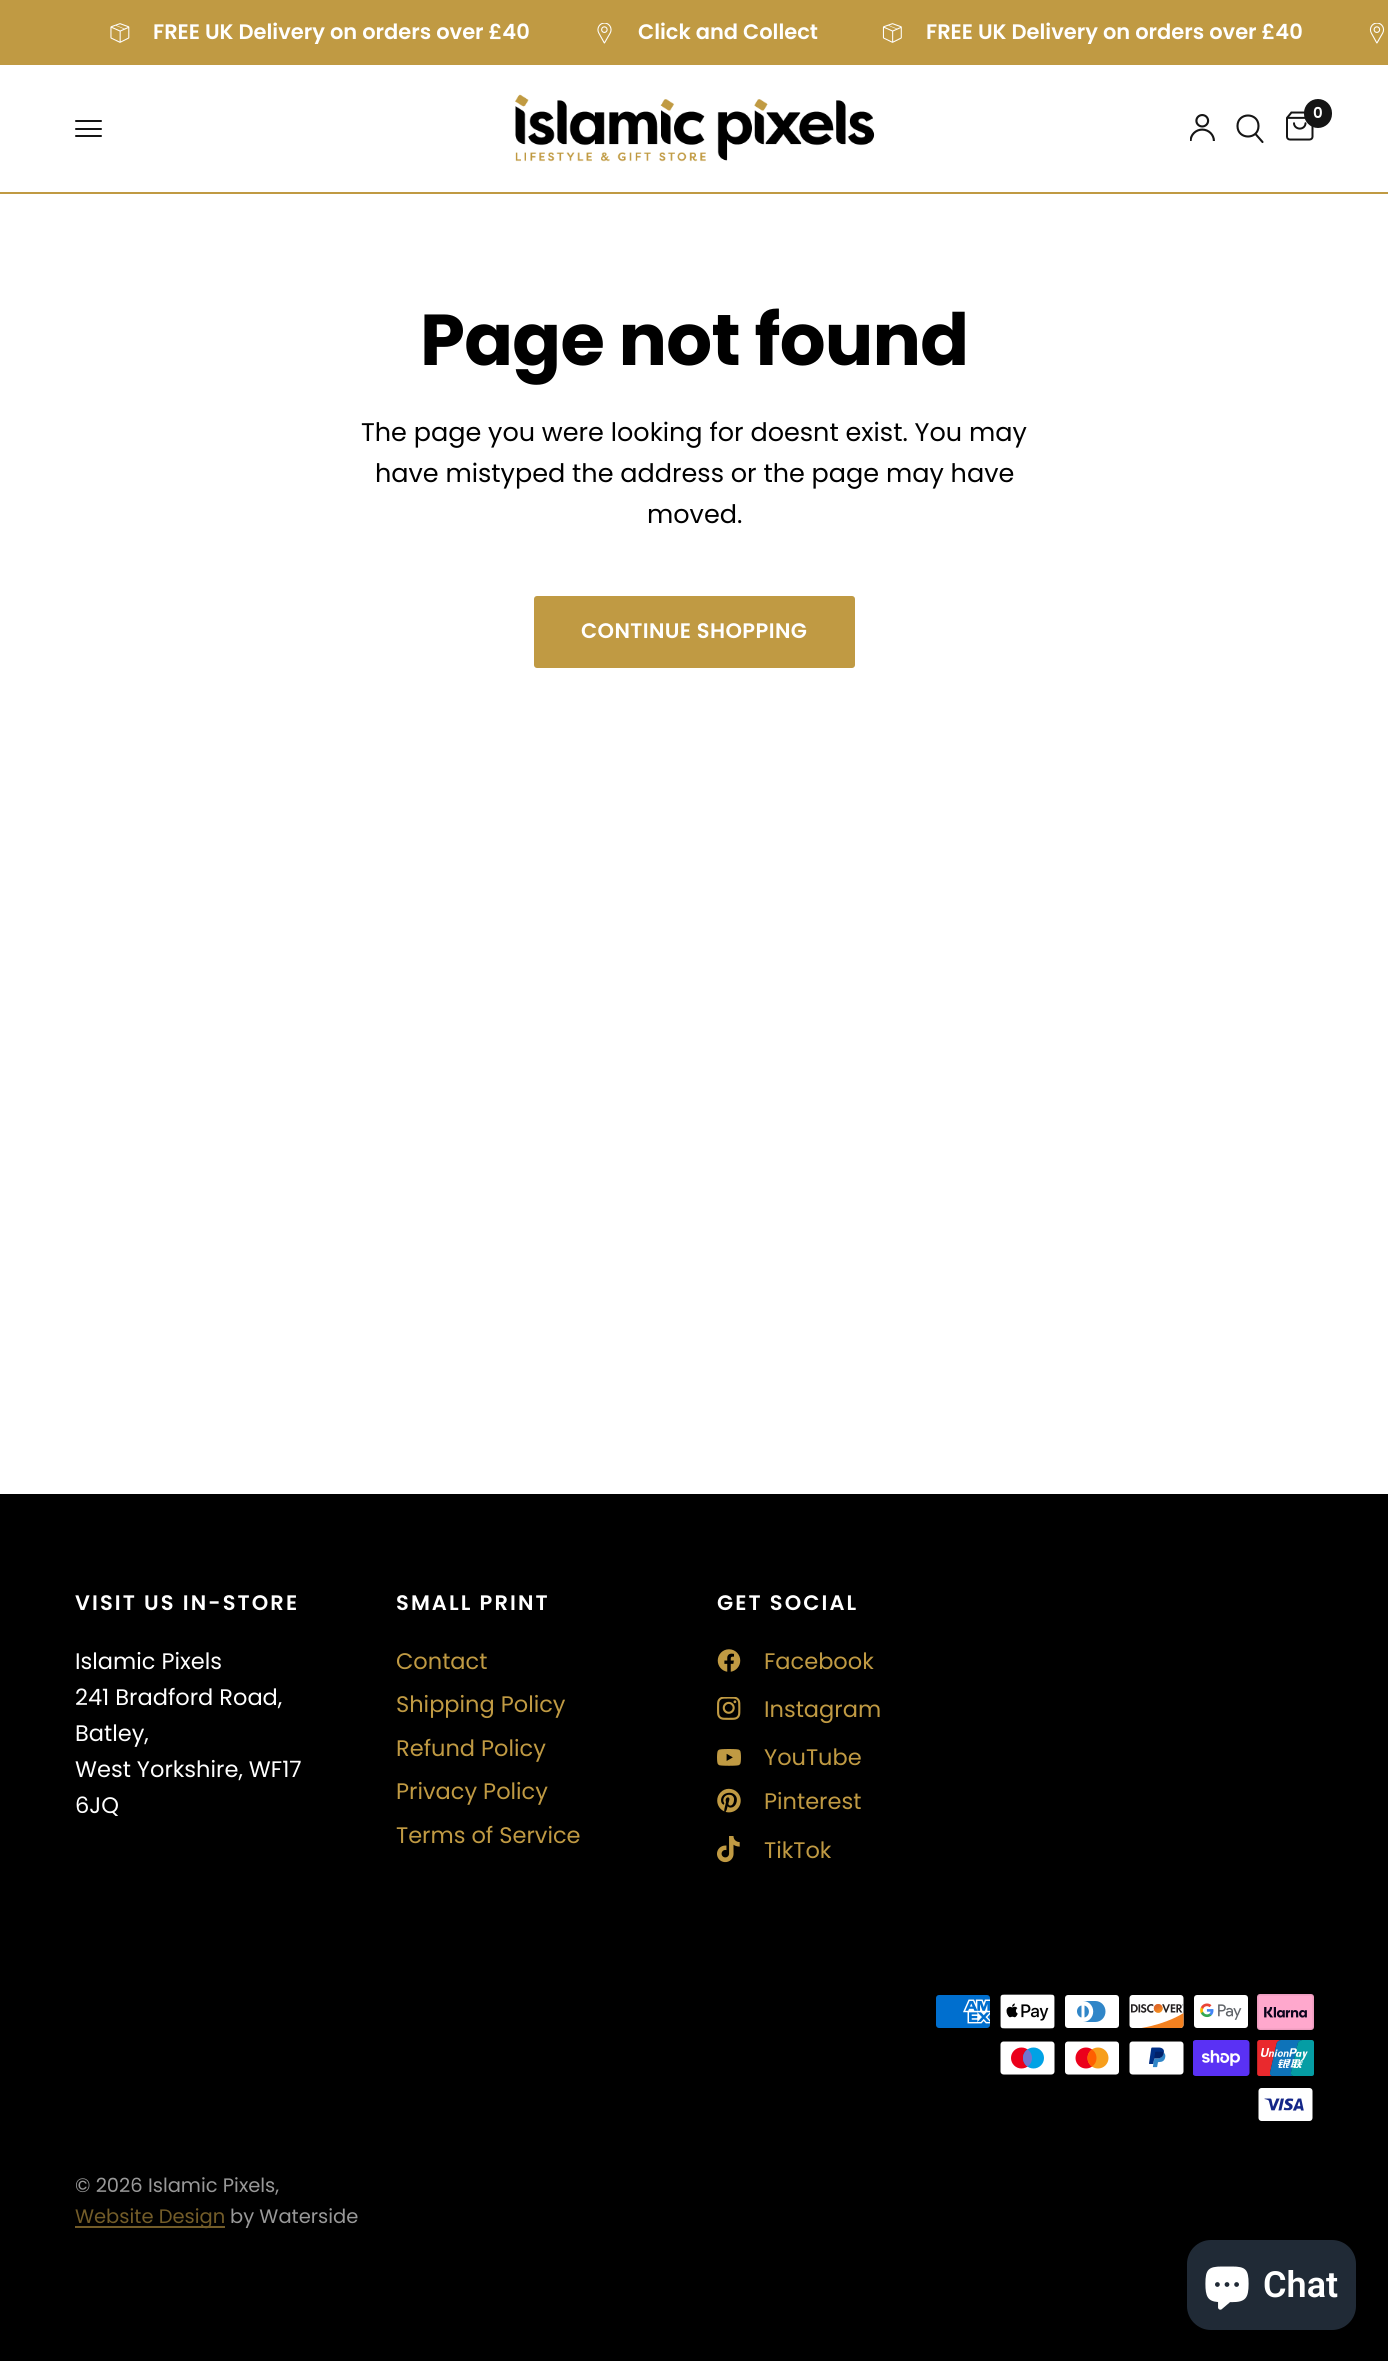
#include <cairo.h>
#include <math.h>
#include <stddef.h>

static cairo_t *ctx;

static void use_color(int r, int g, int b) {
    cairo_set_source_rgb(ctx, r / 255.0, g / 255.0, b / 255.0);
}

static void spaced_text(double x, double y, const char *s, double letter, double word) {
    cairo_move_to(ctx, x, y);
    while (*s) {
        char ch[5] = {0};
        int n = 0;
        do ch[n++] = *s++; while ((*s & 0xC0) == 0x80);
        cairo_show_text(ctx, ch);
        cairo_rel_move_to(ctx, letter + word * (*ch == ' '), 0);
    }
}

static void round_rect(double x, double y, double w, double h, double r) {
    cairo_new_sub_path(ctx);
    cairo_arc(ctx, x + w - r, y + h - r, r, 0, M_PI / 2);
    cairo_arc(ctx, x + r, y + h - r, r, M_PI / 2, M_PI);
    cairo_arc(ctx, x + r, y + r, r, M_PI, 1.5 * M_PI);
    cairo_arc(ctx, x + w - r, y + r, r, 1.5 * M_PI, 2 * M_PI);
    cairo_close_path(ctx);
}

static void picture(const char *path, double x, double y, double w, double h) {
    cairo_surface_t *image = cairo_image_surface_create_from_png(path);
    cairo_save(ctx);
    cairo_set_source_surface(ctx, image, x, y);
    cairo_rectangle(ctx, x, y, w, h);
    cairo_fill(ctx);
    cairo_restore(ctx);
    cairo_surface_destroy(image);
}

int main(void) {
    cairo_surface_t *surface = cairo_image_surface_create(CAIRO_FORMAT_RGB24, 1388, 2361);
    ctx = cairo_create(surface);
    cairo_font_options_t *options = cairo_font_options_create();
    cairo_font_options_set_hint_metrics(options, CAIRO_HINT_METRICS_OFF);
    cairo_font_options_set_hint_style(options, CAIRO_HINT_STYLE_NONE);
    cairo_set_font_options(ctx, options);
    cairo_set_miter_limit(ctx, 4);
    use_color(255, 255, 255);
    cairo_paint(ctx);
    use_color(192, 154, 67);
    cairo_rectangle(ctx, 0, 0, 1388, 65);
    cairo_fill(ctx);
    picture("img1.png", 110, 23, 20, 20);
    cairo_save(ctx);
    cairo_rectangle(ctx, 0, 21, 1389, 23);
    cairo_clip(ctx);
    cairo_select_font_face(ctx, "Poppins SemiBold", CAIRO_FONT_SLANT_NORMAL, CAIRO_FONT_WEIGHT_NORMAL);
    cairo_set_font_size(ctx, 21);
    use_color(255, 255, 255);
    cairo_move_to(ctx, 153, 39);
    cairo_show_text(ctx, "FREE UK Delivery on orders over £40");
    cairo_restore(ctx);
    picture("img2.png", 597, 23, 15, 21);
    cairo_select_font_face(ctx, "Poppins SemiBold", CAIRO_FONT_SLANT_NORMAL, CAIRO_FONT_WEIGHT_NORMAL);
    cairo_set_font_size(ctx, 21);
    use_color(255, 255, 255);
    cairo_move_to(ctx, 638, 39);
    cairo_show_text(ctx, "Click and Collect");
    picture("img3.png", 882, 23, 20, 20);
    cairo_save(ctx);
    cairo_rectangle(ctx, 0, 21, 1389, 23);
    cairo_clip(ctx);
    cairo_move_to(ctx, 926, 39);
    cairo_show_text(ctx, "FREE UK Delivery on orders over £40");
    cairo_restore(ctx);
    picture("img4.png", 1369, 23, 16, 21);
    use_color(192, 154, 67);
    cairo_rectangle(ctx, 0, 192, 1388, 2);
    cairo_fill(ctx);
    picture("img5.png", 515, 94, 360, 68);
    picture("img6.png", 1286, 111, 28, 30);
    use_color(21, 21, 21);
    round_rect(1304, 99, 28, 29, 14);
    cairo_fill(ctx);
    cairo_set_font_size(ctx, 15);
    use_color(255, 255, 255);
    cairo_move_to(ctx, 1313, 118);
    cairo_show_text(ctx, "0");
    picture("img7.png", 1190, 114, 25, 27);
    cairo_new_path(ctx);
    cairo_move_to(ctx, 1255.5, 134);
    cairo_line_to(ctx, 1262.5, 142);
    cairo_move_to(ctx, 1258.5, 126);
    cairo_curve_to(ctx, 1258.5, 140, 1237.5, 140, 1237.5, 126);
    cairo_curve_to(ctx, 1237.5, 112, 1258.5, 112, 1258.5, 126);
    cairo_close_path(ctx);
    use_color(21, 21, 21);
    cairo_set_line_width(ctx, 2.1);
    cairo_set_line_cap(ctx, CAIRO_LINE_CAP_ROUND);
    cairo_set_line_join(ctx, CAIRO_LINE_JOIN_ROUND);
    cairo_stroke(ctx);
    round_rect(75, 120, 27, 2, 1);
    cairo_fill(ctx);
    round_rect(75, 128, 27, 2, 1);
    cairo_fill(ctx);
    round_rect(75, 135, 27, 2, 1);
    cairo_fill(ctx);
    cairo_select_font_face(ctx, "Poppins", CAIRO_FONT_SLANT_NORMAL, CAIRO_FONT_WEIGHT_BOLD);
    cairo_set_font_size(ctx, 72);
    use_color(0, 0, 0);
    spaced_text(420, 365, "Page not found", -0.75, 0);
    cairo_select_font_face(ctx, "Poppins", CAIRO_FONT_SLANT_NORMAL, CAIRO_FONT_WEIGHT_NORMAL);
    cairo_set_font_size(ctx, 25.5);
    cairo_move_to(ctx, 361, 441);
    cairo_show_text(ctx, "The page you were looking for doesnt exist. You may");
    cairo_move_to(ctx, 375, 482);
    cairo_show_text(ctx, "have mistyped the address or the page may have");
    cairo_move_to(ctx, 647, 523);
    cairo_show_text(ctx, "moved.");
    use_color(192, 154, 67);
    round_rect(535, 597, 319, 70, 2);
    cairo_fill_preserve(ctx);
    cairo_set_line_width(ctx, 2);
    cairo_set_line_cap(ctx, CAIRO_LINE_CAP_BUTT);
    cairo_set_line_join(ctx, CAIRO_LINE_JOIN_MITER);
    cairo_stroke(ctx);
    cairo_select_font_face(ctx, "Poppins SemiBold", CAIRO_FONT_SLANT_NORMAL, CAIRO_FONT_WEIGHT_NORMAL);
    cairo_set_font_size(ctx, 21);
    use_color(255, 255, 255);
    spaced_text(581, 638, "CONTINUE SHOPPING", 0.4, 0);
    use_color(0, 0, 0);
    cairo_rectangle(ctx, 0, 1494, 1388, 867);
    cairo_fill(ctx);
    use_color(255, 255, 255);
    spaced_text(75, 1610, "VISIT US IN-STORE", 2.1, 0);
    cairo_select_font_face(ctx, "Poppins", CAIRO_FONT_SLANT_NORMAL, CAIRO_FONT_WEIGHT_NORMAL);
    cairo_set_font_size(ctx, 22.5);
    cairo_move_to(ctx, 75, 1669);
    cairo_show_text(ctx, "Islamic Pixels");
    cairo_move_to(ctx, 75, 1705);
    cairo_show_text(ctx, "241 Bradford Road,");
    cairo_move_to(ctx, 75, 1741);
    cairo_show_text(ctx, "Batley,");
    cairo_move_to(ctx, 75, 1777);
    cairo_show_text(ctx, "West Yorkshire, WF17");
    cairo_move_to(ctx, 75, 1813);
    cairo_show_text(ctx, "6JQ");
    cairo_select_font_face(ctx, "Poppins SemiBold", CAIRO_FONT_SLANT_NORMAL, CAIRO_FONT_WEIGHT_NORMAL);
    cairo_set_font_size(ctx, 21);
    spaced_text(396, 1610, "SMALL PRINT", 2.1, 0);
    cairo_select_font_face(ctx, "Poppins", CAIRO_FONT_SLANT_NORMAL, CAIRO_FONT_WEIGHT_NORMAL);
    cairo_set_font_size(ctx, 22.5);
    use_color(192, 154, 67);
    cairo_move_to(ctx, 396, 1669);
    cairo_show_text(ctx, "Contact");
    cairo_move_to(ctx, 396, 1712);
    cairo_show_text(ctx, "Shipping Policy");
    cairo_move_to(ctx, 396, 1756);
    cairo_show_text(ctx, "Refund Policy");
    cairo_move_to(ctx, 396, 1799);
    cairo_show_text(ctx, "Privacy Policy");
    cairo_move_to(ctx, 396, 1843);
    cairo_show_text(ctx, "Terms of Service");
    cairo_select_font_face(ctx, "Poppins SemiBold", CAIRO_FONT_SLANT_NORMAL, CAIRO_FONT_WEIGHT_NORMAL);
    cairo_set_font_size(ctx, 21);
    use_color(255, 255, 255);
    spaced_text(717, 1610, "GET SOCIAL", 2.1, 0);
    picture("img8.png", 717, 1649, 24, 23);
    cairo_select_font_face(ctx, "Poppins", CAIRO_FONT_SLANT_NORMAL, CAIRO_FONT_WEIGHT_NORMAL);
    cairo_set_font_size(ctx, 22.5);
    use_color(192, 154, 67);
    cairo_move_to(ctx, 764, 1669);
    cairo_show_text(ctx, "Facebook");
    picture("img9.png", 717, 1697, 24, 23);
    cairo_move_to(ctx, 764, 1717);
    cairo_show_text(ctx, "Instagram");
    picture("img10.png", 717, 1749, 24, 17);
    cairo_move_to(ctx, 764, 1765);
    cairo_show_text(ctx, "YouTube");
    picture("img11.png", 717, 1788, 24, 25);
    cairo_move_to(ctx, 764, 1809);
    cairo_show_text(ctx, "Pinterest");
    picture("img12.png", 717, 1836, 23, 27);
    cairo_move_to(ctx, 764, 1858);
    cairo_show_text(ctx, "TikTok");
    picture("img13.png", 936, 1995, 54, 33);
    picture("img14.png", 1000, 1994, 55, 35);
    picture("img15.png", 1065, 1995, 54, 33);
    picture("img16.png", 1129, 1995, 55, 33);
    picture("img17.png", 1194, 1995, 54, 33);
    picture("img18.png", 1257, 1994, 57, 36);
    picture("img19.png", 1000, 2041, 55, 34);
    picture("img20.png", 1065, 2041, 54, 34);
    picture("img21.png", 1129, 2041, 55, 34);
    picture("img22.png", 1193, 2040, 57, 36);
    picture("img23.png", 1257, 2040, 57, 36);
    picture("img24.png", 1258, 2088, 55, 33);
    cairo_set_font_size(ctx, 19.5);
    use_color(153, 153, 153);
    cairo_move_to(ctx, 75, 2192);
    cairo_show_text(ctx, "© 2026 Islamic Pixels,");
    use_color(115, 92, 40);
    cairo_rectangle(ctx, 75, 2226, 150, 2);
    cairo_fill(ctx);
    cairo_move_to(ctx, 75, 2223);
    cairo_show_text(ctx, "Website Design");
    use_color(153, 153, 153);
    cairo_move_to(ctx, 230, 2223);
    cairo_show_text(ctx, "by Waterside");
    use_color(32, 42, 54);
    round_rect(1187, 2240, 169, 90, 24);
    cairo_fill(ctx);
    picture("img25.png", 1205, 2266, 44, 44);
    cairo_select_font_face(ctx, "Roboto SemiBold", CAIRO_FONT_SLANT_NORMAL, CAIRO_FONT_WEIGHT_NORMAL);
    cairo_set_font_size(ctx, 36);
    use_color(255, 255, 255);
    cairo_move_to(ctx, 1263, 2297);
    cairo_show_text(ctx, "Chat");
    cairo_surface_write_to_png(surface, "result.png");
    cairo_font_options_destroy(options);
    cairo_destroy(ctx);
    cairo_surface_destroy(surface);
    return 0;
}
